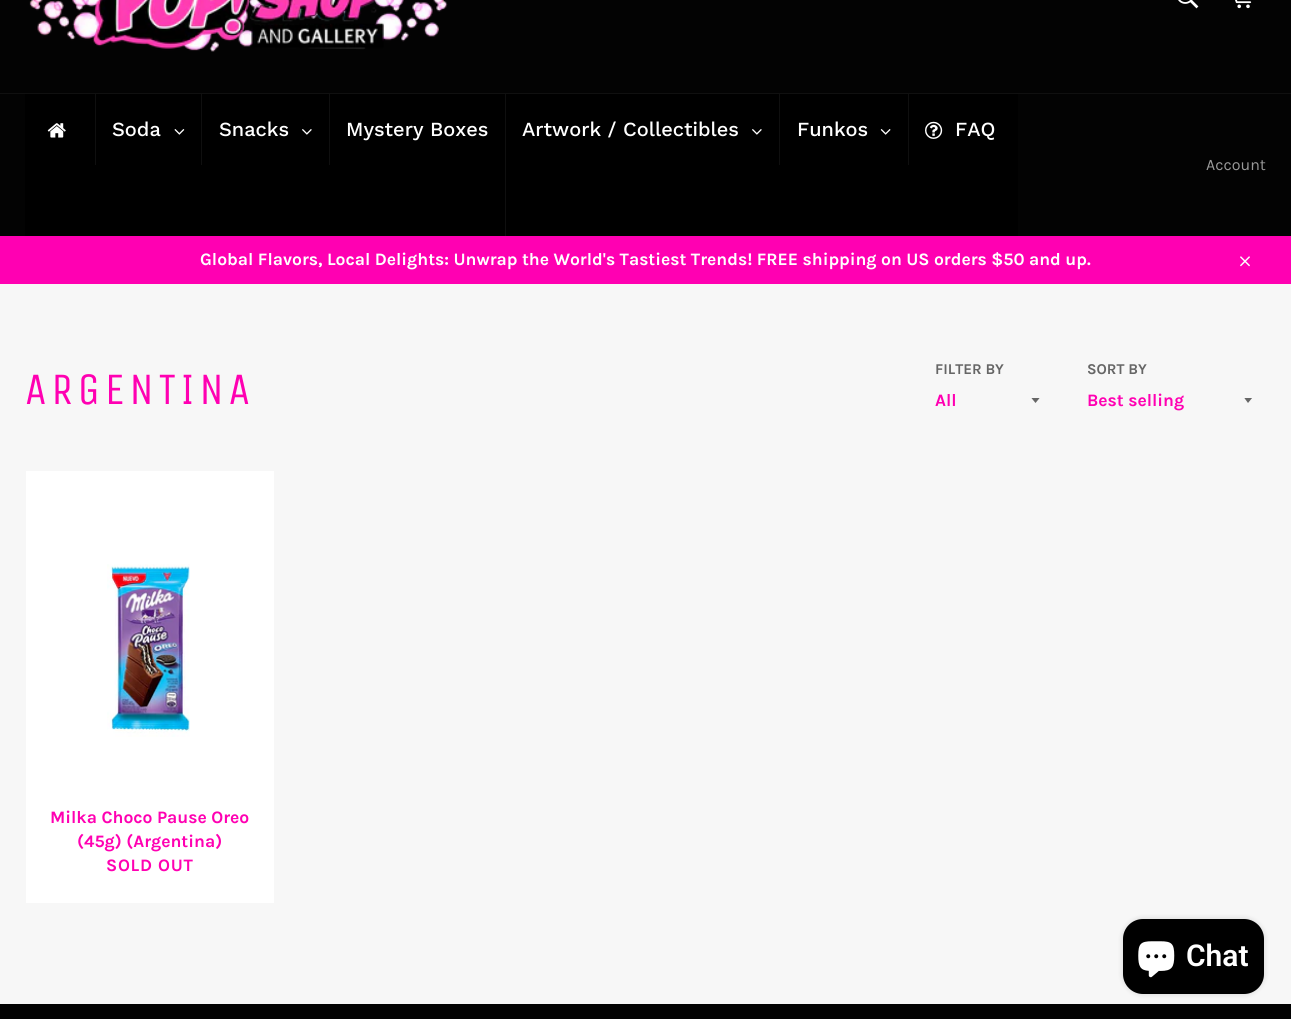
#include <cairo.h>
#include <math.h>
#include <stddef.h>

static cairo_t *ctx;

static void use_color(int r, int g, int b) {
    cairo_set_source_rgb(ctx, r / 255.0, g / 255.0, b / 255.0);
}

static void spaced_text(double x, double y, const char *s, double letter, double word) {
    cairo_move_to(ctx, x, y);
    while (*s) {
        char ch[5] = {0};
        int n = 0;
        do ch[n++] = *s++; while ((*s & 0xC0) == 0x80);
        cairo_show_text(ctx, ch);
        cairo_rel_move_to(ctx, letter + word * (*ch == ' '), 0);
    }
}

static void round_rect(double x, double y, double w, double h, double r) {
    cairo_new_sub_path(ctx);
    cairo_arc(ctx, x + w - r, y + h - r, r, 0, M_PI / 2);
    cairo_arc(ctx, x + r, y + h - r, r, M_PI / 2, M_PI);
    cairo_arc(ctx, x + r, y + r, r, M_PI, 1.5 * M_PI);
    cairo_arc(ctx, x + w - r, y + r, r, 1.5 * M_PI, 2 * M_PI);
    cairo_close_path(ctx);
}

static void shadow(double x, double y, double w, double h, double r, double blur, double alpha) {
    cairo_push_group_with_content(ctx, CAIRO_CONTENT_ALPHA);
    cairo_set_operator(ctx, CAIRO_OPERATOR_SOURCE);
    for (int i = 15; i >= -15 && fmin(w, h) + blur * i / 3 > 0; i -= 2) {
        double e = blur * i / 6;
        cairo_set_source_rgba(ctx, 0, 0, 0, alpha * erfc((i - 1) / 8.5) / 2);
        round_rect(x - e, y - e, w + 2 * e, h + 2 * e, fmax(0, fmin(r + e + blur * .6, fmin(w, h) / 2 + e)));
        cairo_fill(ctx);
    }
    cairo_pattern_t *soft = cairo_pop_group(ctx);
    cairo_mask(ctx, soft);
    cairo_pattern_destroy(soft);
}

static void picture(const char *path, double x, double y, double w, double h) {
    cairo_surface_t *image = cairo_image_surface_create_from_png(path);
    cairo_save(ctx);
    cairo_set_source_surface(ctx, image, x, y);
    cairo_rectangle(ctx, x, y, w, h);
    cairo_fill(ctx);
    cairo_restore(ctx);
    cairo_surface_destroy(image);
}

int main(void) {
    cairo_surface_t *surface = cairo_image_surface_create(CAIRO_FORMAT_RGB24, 1291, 1019);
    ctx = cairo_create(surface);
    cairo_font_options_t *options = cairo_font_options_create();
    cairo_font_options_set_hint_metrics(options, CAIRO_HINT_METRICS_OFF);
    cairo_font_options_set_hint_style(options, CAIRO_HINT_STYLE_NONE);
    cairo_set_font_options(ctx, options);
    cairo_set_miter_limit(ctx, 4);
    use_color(247, 247, 247);
    cairo_paint(ctx);
    use_color(3, 3, 3);
    cairo_rectangle(ctx, 0, 0, 1291, 93);
    cairo_fill(ctx);
    picture("img1.png", 29, 0, 419, 52);
    picture("img2.png", 1178, 0, 21, 9);
    picture("img3.png", 1235, 0, 17, 9);
    cairo_rectangle(ctx, 0, 94, 1291, 142);
    cairo_fill(ctx);
    use_color(16, 16, 16);
    cairo_rectangle(ctx, 0, 93, 1291, 1);
    cairo_fill(ctx);
    use_color(0, 0, 0);
    cairo_rectangle(ctx, 25, 94, 993, 142);
    cairo_fill(ctx);
    picture("img4.png", 47, 123, 19, 15);
    use_color(15, 15, 15);
    cairo_rectangle(ctx, 95, 94, 1, 71);
    cairo_fill(ctx);
    cairo_select_font_face(ctx, "Work Sans Medium", CAIRO_FONT_SLANT_NORMAL, CAIRO_FONT_WEIGHT_NORMAL);
    cairo_set_font_size(ctx, 20);
    use_color(255, 255, 255);
    cairo_move_to(ctx, 112, 136);
    cairo_show_text(ctx, "Soda");
    picture("img5.png", 174, 129, 11, 6);
    use_color(15, 15, 15);
    cairo_rectangle(ctx, 201, 94, 1, 71);
    cairo_fill(ctx);
    use_color(255, 255, 255);
    cairo_move_to(ctx, 219, 136);
    cairo_show_text(ctx, "Snacks");
    picture("img6.png", 302, 129, 10, 6);
    use_color(15, 15, 15);
    cairo_rectangle(ctx, 329, 94, 1, 71);
    cairo_fill(ctx);
    use_color(255, 255, 255);
    cairo_move_to(ctx, 346, 136);
    cairo_show_text(ctx, "Mystery Boxes");
    use_color(15, 15, 15);
    cairo_rectangle(ctx, 505, 94, 1, 142);
    cairo_fill(ctx);
    use_color(255, 255, 255);
    cairo_move_to(ctx, 522, 136);
    cairo_show_text(ctx, "Artwork / Collectibles");
    picture("img6.png", 752, 129, 10, 6);
    use_color(15, 15, 15);
    cairo_rectangle(ctx, 779, 94, 1, 71);
    cairo_fill(ctx);
    use_color(255, 255, 255);
    cairo_move_to(ctx, 797, 136);
    cairo_show_text(ctx, "Funkos");
    picture("img7.png", 880, 129, 11, 6);
    use_color(15, 15, 15);
    cairo_rectangle(ctx, 908, 94, 1, 71);
    cairo_fill(ctx);
    picture("img8.png", 925, 121, 18, 18);
    use_color(255, 255, 255);
    cairo_move_to(ctx, 955, 136);
    cairo_show_text(ctx, "FAQ");
    cairo_select_font_face(ctx, "Karla", CAIRO_FONT_SLANT_NORMAL, CAIRO_FONT_WEIGHT_NORMAL);
    cairo_set_font_size(ctx, 16);
    use_color(154, 154, 154);
    cairo_move_to(ctx, 1206, 170);
    cairo_show_text(ctx, "Account");
    use_color(255, 0, 178);
    cairo_rectangle(ctx, 0, 236, 1291, 48);
    cairo_fill(ctx);
    cairo_select_font_face(ctx, "Karla", CAIRO_FONT_SLANT_NORMAL, CAIRO_FONT_WEIGHT_BOLD);
    cairo_set_font_size(ctx, 17.5);
    use_color(255, 255, 255);
    cairo_move_to(ctx, 200, 265);
    cairo_show_text(ctx, "Global Flavors, Local Delights: Unwrap the World's Tastiest Trends! FREE shipping on US orders $50 and up.");
    picture("img9.png", 1240, 256, 10, 11);
    cairo_select_font_face(ctx, "Unica One", CAIRO_FONT_SLANT_NORMAL, CAIRO_FONT_WEIGHT_NORMAL);
    cairo_set_font_size(ctx, 45);
    use_color(255, 0, 178);
    spaced_text(25, 404, "ARGENTINA", 4.5, 0);
    cairo_select_font_face(ctx, "Karla", CAIRO_FONT_SLANT_NORMAL, CAIRO_FONT_WEIGHT_BOLD);
    cairo_set_font_size(ctx, 15);
    use_color(102, 102, 102);
    cairo_move_to(ctx, 935, 374);
    cairo_show_text(ctx, "FILTER BY");
    cairo_save(ctx);
    cairo_rectangle(ctx, 1031, 398, 10, 6);
    cairo_clip(ctx);
    cairo_new_path(ctx);
    cairo_move_to(ctx, 1031, 397.5);
    cairo_line_to(ctx, 1035.5, 403);
    cairo_line_to(ctx, 1040, 397.5);
    cairo_close_path(ctx);
    cairo_fill(ctx);
    cairo_restore(ctx);
    cairo_set_font_size(ctx, 17.5);
    use_color(255, 0, 178);
    cairo_move_to(ctx, 935, 406);
    cairo_show_text(ctx, "All");
    cairo_set_font_size(ctx, 15);
    use_color(102, 102, 102);
    cairo_move_to(ctx, 1087, 374);
    cairo_show_text(ctx, "SORT BY");
    cairo_save(ctx);
    cairo_rectangle(ctx, 1244, 398, 10, 6);
    cairo_clip(ctx);
    cairo_new_path(ctx);
    cairo_move_to(ctx, 1244, 397.5);
    cairo_line_to(ctx, 1248, 403);
    cairo_line_to(ctx, 1252.5, 397.5);
    cairo_close_path(ctx);
    cairo_fill(ctx);
    cairo_restore(ctx);
    cairo_set_font_size(ctx, 17.5);
    use_color(255, 0, 178);
    cairo_move_to(ctx, 1087, 406);
    cairo_show_text(ctx, "Best selling");
    use_color(255, 255, 255);
    cairo_rectangle(ctx, 26, 471, 248, 432);
    cairo_fill(ctx);
    picture("img10.png", 107, 564, 83, 173);
    use_color(255, 0, 178);
    cairo_move_to(ctx, 50, 823);
    cairo_show_text(ctx, "Milka Choco Pause Oreo");
    cairo_move_to(ctx, 77, 847);
    cairo_show_text(ctx, "(45g) (Argentina)");
    spaced_text(106, 871, "SOLD OUT", 0.75, 0);
    use_color(3, 3, 3);
    cairo_rectangle(ctx, 0, 1004, 1291, 15);
    cairo_fill(ctx);
    use_color(0, 0, 0);
    shadow(1123, 919, 141, 75, 20, 3, 0.15);
    use_color(0, 0, 0);
    round_rect(1123, 919, 141, 75, 20);
    cairo_fill(ctx);
    picture("img11.png", 1138, 941, 37, 37);
    cairo_select_font_face(ctx, "Roboto SemiBold", CAIRO_FONT_SLANT_NORMAL, CAIRO_FONT_WEIGHT_NORMAL);
    cairo_set_font_size(ctx, 30);
    use_color(255, 255, 255);
    cairo_move_to(ctx, 1186, 966);
    cairo_show_text(ctx, "Chat");
    cairo_surface_write_to_png(surface, "result.png");
    cairo_font_options_destroy(options);
    cairo_destroy(ctx);
    cairo_surface_destroy(surface);
    return 0;
}
